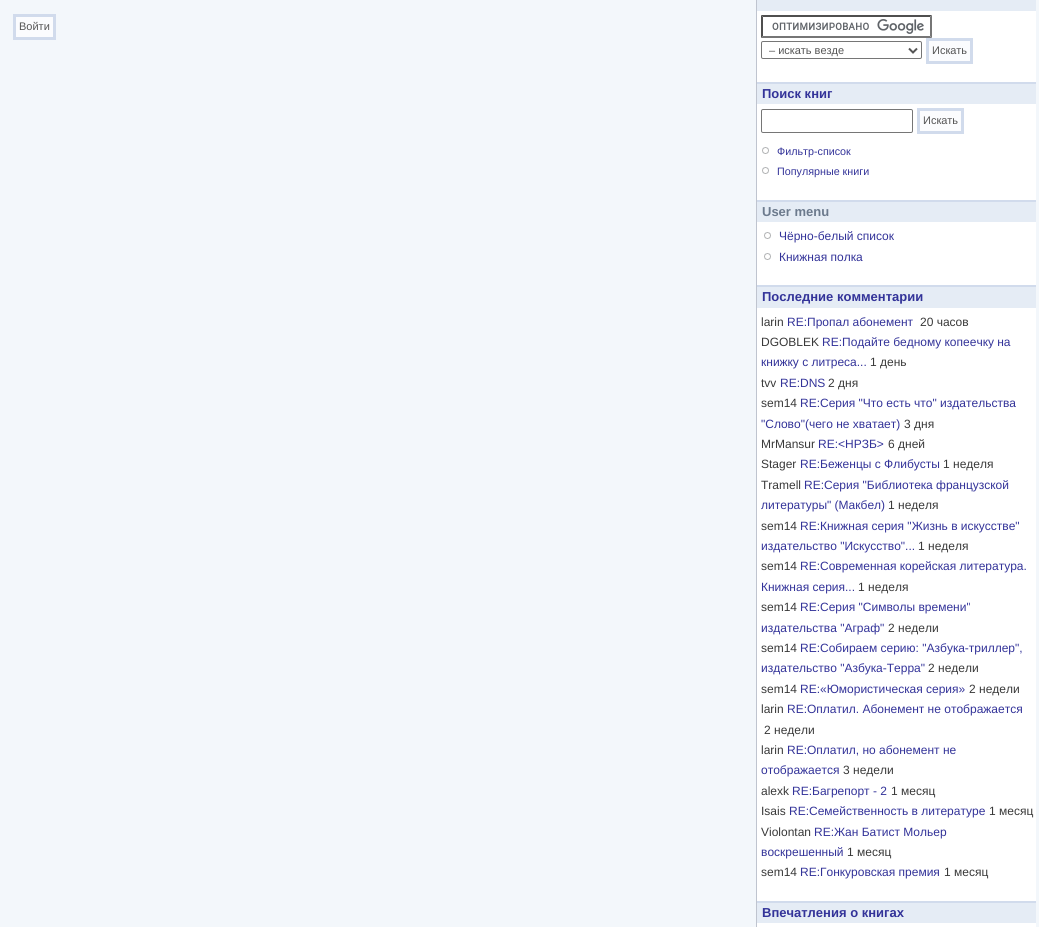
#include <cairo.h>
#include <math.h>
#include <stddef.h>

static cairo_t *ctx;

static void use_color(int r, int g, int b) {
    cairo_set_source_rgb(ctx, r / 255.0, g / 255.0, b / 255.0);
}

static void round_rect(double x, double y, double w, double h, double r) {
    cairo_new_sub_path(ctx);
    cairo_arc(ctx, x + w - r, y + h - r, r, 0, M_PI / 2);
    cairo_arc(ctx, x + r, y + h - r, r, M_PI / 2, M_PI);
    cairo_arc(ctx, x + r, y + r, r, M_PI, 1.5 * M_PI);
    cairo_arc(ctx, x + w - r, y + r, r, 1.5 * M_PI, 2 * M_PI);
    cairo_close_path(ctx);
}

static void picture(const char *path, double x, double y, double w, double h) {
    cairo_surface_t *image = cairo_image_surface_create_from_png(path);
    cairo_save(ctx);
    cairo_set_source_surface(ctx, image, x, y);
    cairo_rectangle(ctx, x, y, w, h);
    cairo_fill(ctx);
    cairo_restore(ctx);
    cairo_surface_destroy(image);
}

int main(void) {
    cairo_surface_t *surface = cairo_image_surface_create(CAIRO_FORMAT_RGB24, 1039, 927);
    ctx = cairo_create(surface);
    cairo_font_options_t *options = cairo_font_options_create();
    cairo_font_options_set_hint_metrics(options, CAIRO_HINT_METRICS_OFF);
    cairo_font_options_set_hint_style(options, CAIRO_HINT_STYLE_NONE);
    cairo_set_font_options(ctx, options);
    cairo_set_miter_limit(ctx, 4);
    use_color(243, 247, 251);
    cairo_paint(ctx);
    use_color(251, 252, 254);
    cairo_rectangle(ctx, 14.5, 15.5, 40, 23);
    cairo_fill_preserve(ctx);
    use_color(209, 219, 236);
    cairo_set_line_width(ctx, 3);
    cairo_stroke(ctx);
    cairo_select_font_face(ctx, "Liberation Sans", CAIRO_FONT_SLANT_NORMAL, CAIRO_FONT_WEIGHT_NORMAL);
    cairo_set_font_size(ctx, 11);
    use_color(85, 85, 85);
    cairo_move_to(ctx, 19, 30);
    cairo_show_text(ctx, "Войти");
    use_color(255, 255, 255);
    cairo_rectangle(ctx, 757, 11, 279, 916);
    cairo_fill(ctx);
    use_color(191, 196, 207);
    cairo_rectangle(ctx, 756, 0, 1, 927);
    cairo_fill(ctx);
    use_color(229, 236, 245);
    cairo_rectangle(ctx, 757, 0, 279, 11);
    cairo_fill(ctx);
    picture("img1.png", 772, 19, 152, 15);
    use_color(79, 79, 79);
    cairo_new_path(ctx);
    cairo_move_to(ctx, 761, 15);
    cairo_line_to(ctx, 932, 15);
    cairo_line_to(ctx, 930, 17);
    cairo_line_to(ctx, 763, 17);
    cairo_close_path(ctx);
    cairo_fill(ctx);
    use_color(118, 118, 118);
    cairo_new_path(ctx);
    cairo_move_to(ctx, 932, 15);
    cairo_line_to(ctx, 932, 38);
    cairo_line_to(ctx, 930, 36);
    cairo_line_to(ctx, 930, 17);
    cairo_close_path(ctx);
    cairo_fill(ctx);
    cairo_new_path(ctx);
    cairo_move_to(ctx, 932, 38);
    cairo_line_to(ctx, 761, 38);
    cairo_line_to(ctx, 763, 36);
    cairo_line_to(ctx, 930, 36);
    cairo_close_path(ctx);
    cairo_fill(ctx);
    use_color(79, 79, 79);
    cairo_new_path(ctx);
    cairo_move_to(ctx, 761, 38);
    cairo_line_to(ctx, 761, 15);
    cairo_line_to(ctx, 763, 17);
    cairo_line_to(ctx, 763, 36);
    cairo_close_path(ctx);
    cairo_fill(ctx);
    round_rect(761.5, 41.5, 160, 17, 1.5);
    use_color(118, 118, 118);
    cairo_set_line_width(ctx, 1);
    cairo_stroke(ctx);
    cairo_new_path(ctx);
    cairo_move_to(ctx, 909, 48.5);
    cairo_line_to(ctx, 913, 52.5);
    cairo_line_to(ctx, 917, 48.5);
    use_color(85, 85, 85);
    cairo_set_line_width(ctx, 2);
    cairo_stroke(ctx);
    cairo_move_to(ctx, 769, 54);
    cairo_show_text(ctx, "– искать везде");
    use_color(251, 252, 254);
    cairo_rectangle(ctx, 927.5, 39.5, 44, 23);
    cairo_fill_preserve(ctx);
    use_color(209, 219, 236);
    cairo_set_line_width(ctx, 3);
    cairo_stroke(ctx);
    use_color(85, 85, 85);
    cairo_move_to(ctx, 932, 54);
    cairo_show_text(ctx, "Искать");
    use_color(229, 236, 245);
    cairo_rectangle(ctx, 757, 84, 279, 20);
    cairo_fill(ctx);
    use_color(209, 219, 236);
    cairo_rectangle(ctx, 757, 82, 279, 2);
    cairo_fill(ctx);
    cairo_select_font_face(ctx, "Liberation Sans", CAIRO_FONT_SLANT_NORMAL, CAIRO_FONT_WEIGHT_BOLD);
    cairo_set_font_size(ctx, 13);
    use_color(51, 51, 153);
    cairo_move_to(ctx, 762, 98);
    cairo_show_text(ctx, "Поиск книг");
    round_rect(761.5, 109.5, 151, 23, 1.5);
    use_color(118, 118, 118);
    cairo_set_line_width(ctx, 1);
    cairo_stroke(ctx);
    use_color(251, 252, 254);
    cairo_rectangle(ctx, 918.5, 109.5, 44, 23);
    cairo_fill_preserve(ctx);
    use_color(209, 219, 236);
    cairo_set_line_width(ctx, 3);
    cairo_stroke(ctx);
    cairo_select_font_face(ctx, "Liberation Sans", CAIRO_FONT_SLANT_NORMAL, CAIRO_FONT_WEIGHT_NORMAL);
    cairo_set_font_size(ctx, 11);
    use_color(85, 85, 85);
    cairo_move_to(ctx, 923, 124);
    cairo_show_text(ctx, "Искать");
    picture("img2.png", 762, 147, 7, 7);
    cairo_set_font_size(ctx, 10.75);
    use_color(51, 51, 153);
    cairo_move_to(ctx, 777, 155);
    cairo_show_text(ctx, "Фильтр-список");
    picture("img2.png", 762, 167, 7, 7);
    cairo_move_to(ctx, 777, 175);
    cairo_show_text(ctx, "Популярные книги");
    use_color(229, 236, 245);
    cairo_rectangle(ctx, 757, 202, 279, 20);
    cairo_fill(ctx);
    use_color(209, 219, 236);
    cairo_rectangle(ctx, 757, 200, 279, 2);
    cairo_fill(ctx);
    cairo_select_font_face(ctx, "Liberation Sans", CAIRO_FONT_SLANT_NORMAL, CAIRO_FONT_WEIGHT_BOLD);
    cairo_set_font_size(ctx, 13);
    use_color(108, 122, 141);
    cairo_move_to(ctx, 762, 216);
    cairo_show_text(ctx, "User menu");
    picture("img2.png", 764, 232, 7, 7);
    cairo_select_font_face(ctx, "Liberation Sans", CAIRO_FONT_SLANT_NORMAL, CAIRO_FONT_WEIGHT_NORMAL);
    cairo_set_font_size(ctx, 12);
    use_color(51, 51, 153);
    cairo_move_to(ctx, 779, 240);
    cairo_show_text(ctx, "Чёрно-белый список");
    picture("img2.png", 764, 253, 7, 7);
    cairo_move_to(ctx, 779, 261);
    cairo_show_text(ctx, "Книжная полка");
    use_color(229, 236, 245);
    cairo_rectangle(ctx, 757, 287, 279, 21);
    cairo_fill(ctx);
    use_color(209, 219, 236);
    cairo_rectangle(ctx, 757, 285, 279, 2);
    cairo_fill(ctx);
    cairo_select_font_face(ctx, "Liberation Sans", CAIRO_FONT_SLANT_NORMAL, CAIRO_FONT_WEIGHT_BOLD);
    cairo_set_font_size(ctx, 13);
    use_color(51, 51, 153);
    cairo_move_to(ctx, 762, 301);
    cairo_show_text(ctx, "Последние комментарии");
    cairo_select_font_face(ctx, "Liberation Sans", CAIRO_FONT_SLANT_NORMAL, CAIRO_FONT_WEIGHT_NORMAL);
    cairo_set_font_size(ctx, 12);
    use_color(57, 57, 57);
    cairo_move_to(ctx, 761, 326);
    cairo_show_text(ctx, "larin");
    use_color(51, 51, 153);
    cairo_move_to(ctx, 787, 326);
    cairo_show_text(ctx, "RE:Пропал абонемент");
    use_color(57, 57, 57);
    cairo_move_to(ctx, 920, 326);
    cairo_show_text(ctx, "20 часов");
    cairo_move_to(ctx, 761, 346);
    cairo_show_text(ctx, "DGOBLEK");
    use_color(51, 51, 153);
    cairo_move_to(ctx, 822, 346);
    cairo_show_text(ctx, "RE:Подайте бедному копеечку на");
    cairo_move_to(ctx, 761, 366);
    cairo_show_text(ctx, "книжку с литреса...");
    use_color(57, 57, 57);
    cairo_move_to(ctx, 870, 366);
    cairo_show_text(ctx, "1 день");
    cairo_move_to(ctx, 761, 387);
    cairo_show_text(ctx, "tvv");
    use_color(51, 51, 153);
    cairo_move_to(ctx, 780, 387);
    cairo_show_text(ctx, "RE:DNS");
    use_color(57, 57, 57);
    cairo_move_to(ctx, 828, 387);
    cairo_show_text(ctx, "2 дня");
    cairo_move_to(ctx, 761, 407);
    cairo_show_text(ctx, "sem14");
    use_color(51, 51, 153);
    cairo_move_to(ctx, 800, 407);
    cairo_show_text(ctx, "RE:Серия \"Что есть что\" издательства");
    cairo_move_to(ctx, 761, 428);
    cairo_show_text(ctx, "\"Слово\"(чего не хватает)");
    use_color(57, 57, 57);
    cairo_move_to(ctx, 904, 428);
    cairo_show_text(ctx, "3 дня");
    cairo_move_to(ctx, 761, 448);
    cairo_show_text(ctx, "MrMansur");
    use_color(51, 51, 153);
    cairo_move_to(ctx, 818, 448);
    cairo_show_text(ctx, "RE:<НРЗБ>");
    use_color(57, 57, 57);
    cairo_move_to(ctx, 888, 448);
    cairo_show_text(ctx, "6 дней");
    cairo_move_to(ctx, 761, 468);
    cairo_show_text(ctx, "Stager");
    use_color(51, 51, 153);
    cairo_move_to(ctx, 800, 468);
    cairo_show_text(ctx, "RE:Беженцы с Флибусты");
    use_color(57, 57, 57);
    cairo_move_to(ctx, 943, 468);
    cairo_show_text(ctx, "1 неделя");
    cairo_move_to(ctx, 761, 489);
    cairo_show_text(ctx, "Tramell");
    use_color(51, 51, 153);
    cairo_move_to(ctx, 804, 489);
    cairo_show_text(ctx, "RE:Серия \"Библиотека французской");
    cairo_move_to(ctx, 761, 509);
    cairo_show_text(ctx, "литературы\" (Макбел)");
    use_color(57, 57, 57);
    cairo_move_to(ctx, 888, 509);
    cairo_show_text(ctx, "1 неделя");
    cairo_move_to(ctx, 761, 530);
    cairo_show_text(ctx, "sem14");
    use_color(51, 51, 153);
    cairo_move_to(ctx, 800, 530);
    cairo_show_text(ctx, "RE:Книжная серия \"Жизнь в искусстве\"");
    cairo_move_to(ctx, 761, 550);
    cairo_show_text(ctx, "издательство \"Искусство\"...");
    use_color(57, 57, 57);
    cairo_move_to(ctx, 918, 550);
    cairo_show_text(ctx, "1 неделя");
    cairo_move_to(ctx, 761, 570);
    cairo_show_text(ctx, "sem14");
    use_color(51, 51, 153);
    cairo_move_to(ctx, 800, 570);
    cairo_show_text(ctx, "RE:Современная корейская литература.");
    cairo_move_to(ctx, 761, 591);
    cairo_show_text(ctx, "Книжная серия...");
    use_color(57, 57, 57);
    cairo_move_to(ctx, 858, 591);
    cairo_show_text(ctx, "1 неделя");
    cairo_move_to(ctx, 761, 611);
    cairo_show_text(ctx, "sem14");
    use_color(51, 51, 153);
    cairo_move_to(ctx, 800, 611);
    cairo_show_text(ctx, "RE:Серия \"Символы времени\"");
    cairo_move_to(ctx, 761, 632);
    cairo_show_text(ctx, "издательства \"Аграф\"");
    use_color(57, 57, 57);
    cairo_move_to(ctx, 888, 632);
    cairo_show_text(ctx, "2 недели");
    cairo_move_to(ctx, 761, 652);
    cairo_show_text(ctx, "sem14");
    use_color(51, 51, 153);
    cairo_move_to(ctx, 800, 652);
    cairo_show_text(ctx, "RE:Собираем серию: \"Азбука-триллер\",");
    cairo_move_to(ctx, 761, 672);
    cairo_show_text(ctx, "издательство \"Азбука-Терра\"");
    use_color(57, 57, 57);
    cairo_move_to(ctx, 928, 672);
    cairo_show_text(ctx, "2 недели");
    cairo_move_to(ctx, 761, 693);
    cairo_show_text(ctx, "sem14");
    use_color(51, 51, 153);
    cairo_move_to(ctx, 800, 693);
    cairo_show_text(ctx, "RE:«Юмористическая серия»");
    use_color(57, 57, 57);
    cairo_move_to(ctx, 969, 693);
    cairo_show_text(ctx, "2 недели");
    cairo_move_to(ctx, 761, 713);
    cairo_show_text(ctx, "larin");
    use_color(51, 51, 153);
    cairo_move_to(ctx, 787, 713);
    cairo_show_text(ctx, "RE:Оплатил. Абонемент не отображается");
    use_color(57, 57, 57);
    cairo_move_to(ctx, 764, 734);
    cairo_show_text(ctx, "2 недели");
    cairo_move_to(ctx, 761, 754);
    cairo_show_text(ctx, "larin");
    use_color(51, 51, 153);
    cairo_move_to(ctx, 787, 754);
    cairo_show_text(ctx, "RE:Оплатил, но абонемент не");
    cairo_move_to(ctx, 761, 774);
    cairo_show_text(ctx, "отображается");
    use_color(57, 57, 57);
    cairo_move_to(ctx, 843, 774);
    cairo_show_text(ctx, "3 недели");
    cairo_move_to(ctx, 761, 795);
    cairo_show_text(ctx, "alexk");
    use_color(51, 51, 153);
    cairo_move_to(ctx, 792, 795);
    cairo_show_text(ctx, "RE:Багрепорт - 2");
    use_color(57, 57, 57);
    cairo_move_to(ctx, 891, 795);
    cairo_show_text(ctx, "1 месяц");
    cairo_move_to(ctx, 761, 815);
    cairo_show_text(ctx, "Isais");
    use_color(51, 51, 153);
    cairo_move_to(ctx, 789, 815);
    cairo_show_text(ctx, "RE:Семейственность в литературе");
    use_color(57, 57, 57);
    cairo_move_to(ctx, 989, 815);
    cairo_show_text(ctx, "1 месяц");
    cairo_move_to(ctx, 761, 836);
    cairo_show_text(ctx, "Violontan");
    use_color(51, 51, 153);
    cairo_move_to(ctx, 814, 836);
    cairo_show_text(ctx, "RE:Жан Батист Мольер");
    cairo_move_to(ctx, 761, 856);
    cairo_show_text(ctx, "воскрешенный");
    use_color(57, 57, 57);
    cairo_move_to(ctx, 847, 856);
    cairo_show_text(ctx, "1 месяц");
    cairo_move_to(ctx, 761, 876);
    cairo_show_text(ctx, "sem14");
    use_color(51, 51, 153);
    cairo_move_to(ctx, 800, 876);
    cairo_show_text(ctx, "RE:Гонкуровская премия");
    use_color(57, 57, 57);
    cairo_move_to(ctx, 944, 876);
    cairo_show_text(ctx, "1 месяц");
    use_color(229, 236, 245);
    cairo_rectangle(ctx, 757, 903, 279, 20);
    cairo_fill(ctx);
    use_color(209, 219, 236);
    cairo_rectangle(ctx, 757, 901, 279, 2);
    cairo_fill(ctx);
    cairo_select_font_face(ctx, "Liberation Sans", CAIRO_FONT_SLANT_NORMAL, CAIRO_FONT_WEIGHT_BOLD);
    cairo_set_font_size(ctx, 13);
    use_color(51, 51, 153);
    cairo_move_to(ctx, 762, 917);
    cairo_show_text(ctx, "Впечатления о книгах");
    cairo_surface_write_to_png(surface, "result.png");
    cairo_font_options_destroy(options);
    cairo_destroy(ctx);
    cairo_surface_destroy(surface);
    return 0;
}
